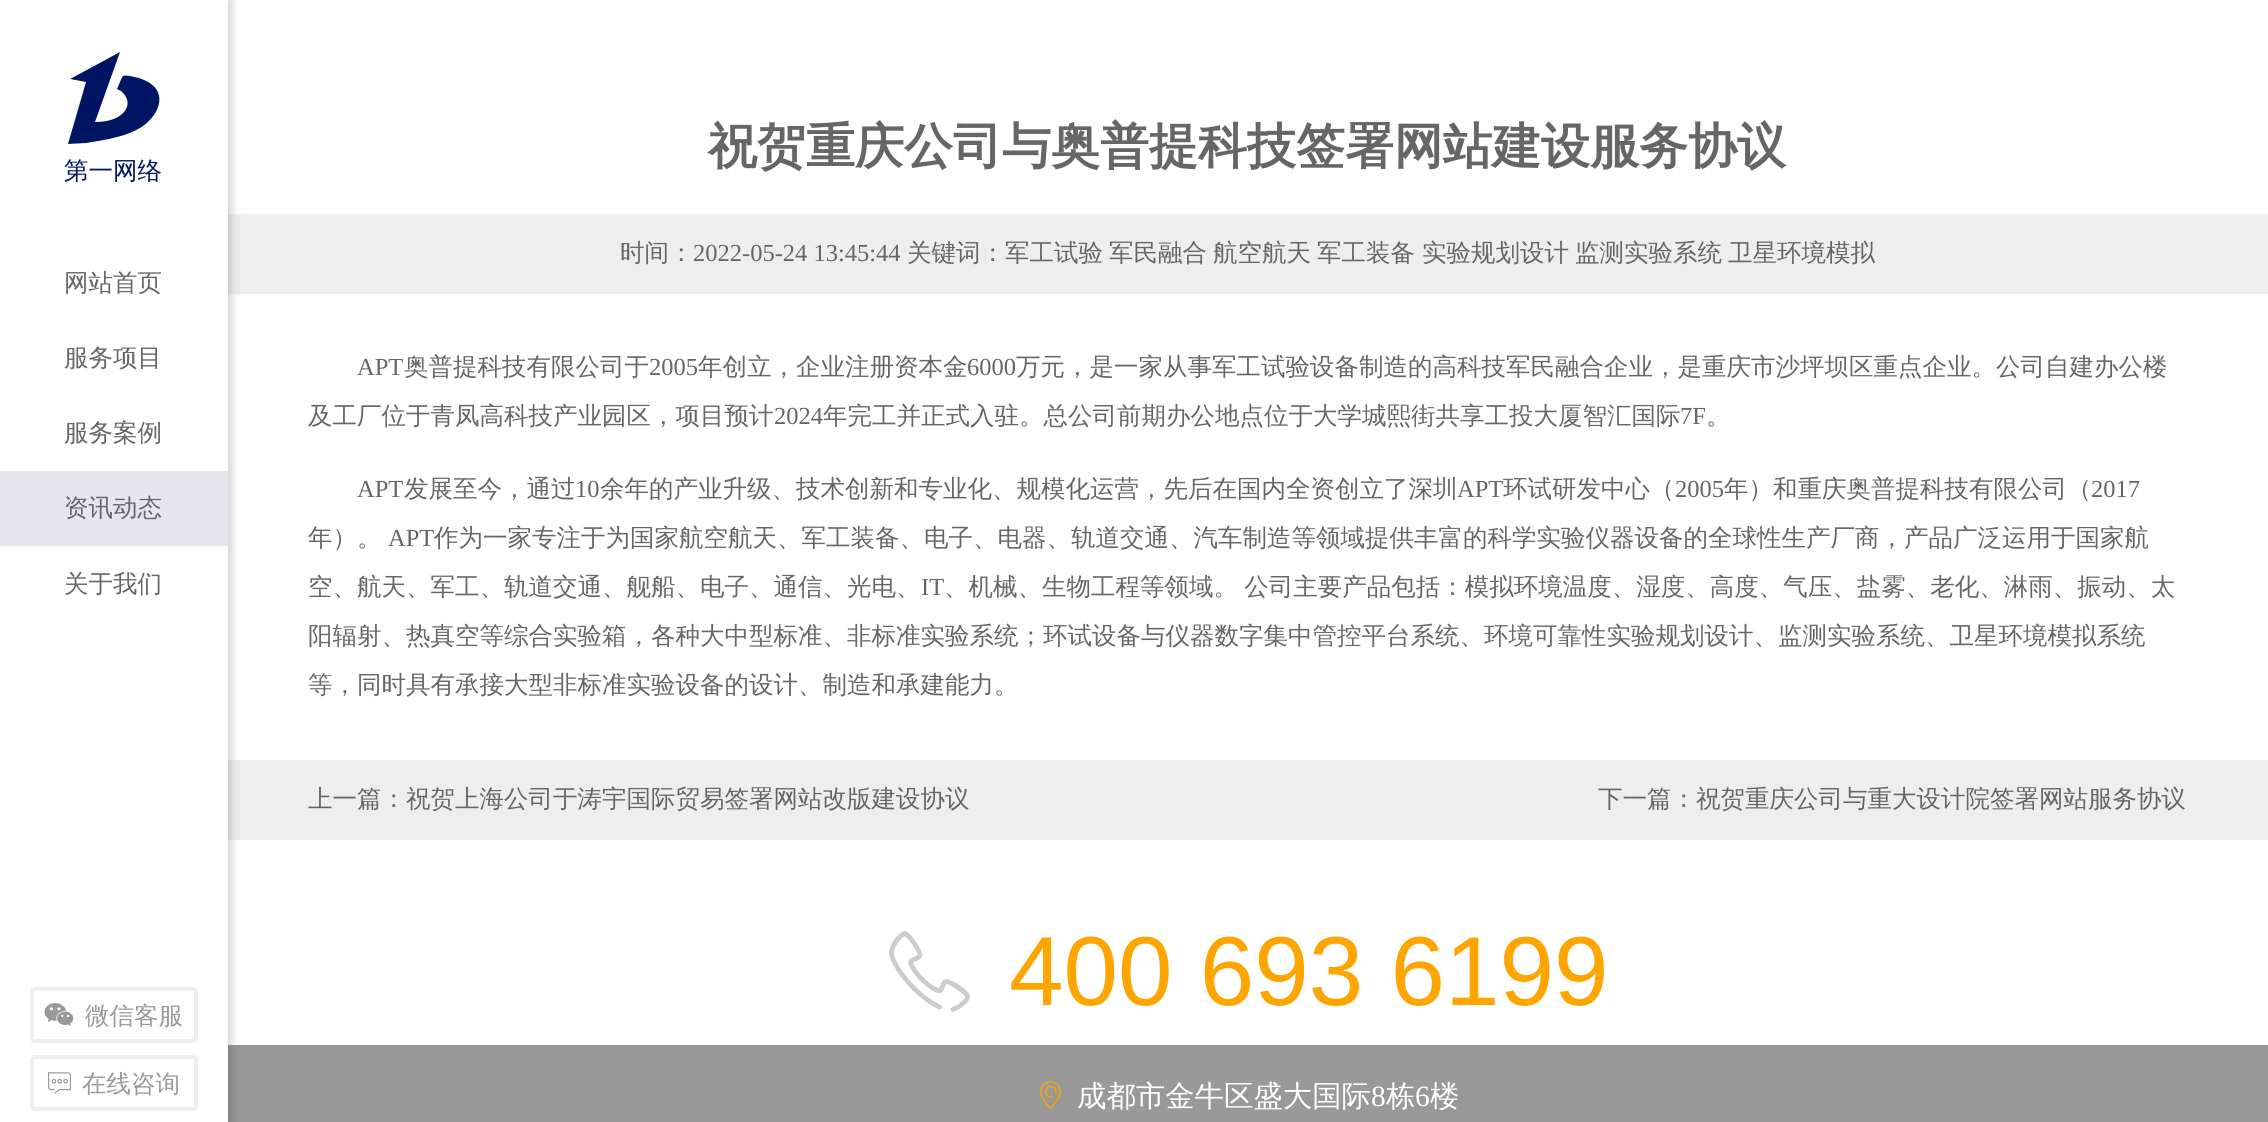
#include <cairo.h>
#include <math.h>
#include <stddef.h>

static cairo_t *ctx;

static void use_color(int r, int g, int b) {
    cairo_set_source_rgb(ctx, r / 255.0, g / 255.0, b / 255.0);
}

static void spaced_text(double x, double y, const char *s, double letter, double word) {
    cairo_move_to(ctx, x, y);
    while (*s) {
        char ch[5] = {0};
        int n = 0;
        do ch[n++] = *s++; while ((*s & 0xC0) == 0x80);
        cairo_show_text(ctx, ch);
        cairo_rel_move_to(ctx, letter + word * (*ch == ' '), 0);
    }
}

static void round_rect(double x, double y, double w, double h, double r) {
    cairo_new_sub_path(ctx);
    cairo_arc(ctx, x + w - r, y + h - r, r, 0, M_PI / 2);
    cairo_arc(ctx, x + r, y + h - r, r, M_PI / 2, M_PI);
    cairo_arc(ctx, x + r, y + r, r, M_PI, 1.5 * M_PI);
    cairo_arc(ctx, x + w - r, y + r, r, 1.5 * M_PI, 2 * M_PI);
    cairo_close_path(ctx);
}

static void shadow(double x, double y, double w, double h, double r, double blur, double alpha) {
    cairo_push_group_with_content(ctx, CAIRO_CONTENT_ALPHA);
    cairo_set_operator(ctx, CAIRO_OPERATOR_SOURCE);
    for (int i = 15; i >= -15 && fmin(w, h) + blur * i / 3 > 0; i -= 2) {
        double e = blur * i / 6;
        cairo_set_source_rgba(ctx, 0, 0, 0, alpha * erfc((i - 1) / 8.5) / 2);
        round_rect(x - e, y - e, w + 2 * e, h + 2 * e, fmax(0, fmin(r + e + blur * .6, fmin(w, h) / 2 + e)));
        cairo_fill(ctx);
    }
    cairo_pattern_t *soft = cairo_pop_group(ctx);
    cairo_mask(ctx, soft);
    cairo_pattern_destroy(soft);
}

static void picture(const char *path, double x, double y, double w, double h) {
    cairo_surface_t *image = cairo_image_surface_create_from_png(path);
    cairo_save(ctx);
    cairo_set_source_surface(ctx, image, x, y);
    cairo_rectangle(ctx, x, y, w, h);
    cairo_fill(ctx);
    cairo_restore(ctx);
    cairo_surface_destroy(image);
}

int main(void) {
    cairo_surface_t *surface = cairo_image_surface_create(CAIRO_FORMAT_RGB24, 2268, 1122);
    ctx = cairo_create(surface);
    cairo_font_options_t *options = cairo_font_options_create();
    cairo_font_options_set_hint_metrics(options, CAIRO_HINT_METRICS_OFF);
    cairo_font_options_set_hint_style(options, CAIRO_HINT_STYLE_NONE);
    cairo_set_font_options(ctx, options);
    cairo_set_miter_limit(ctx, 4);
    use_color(255, 255, 255);
    cairo_paint(ctx);
    use_color(238, 238, 238);
    cairo_rectangle(ctx, 226, 214, 2042, 80);
    cairo_fill(ctx);
    cairo_rectangle(ctx, 226, 760, 2042, 80);
    cairo_fill(ctx);
    use_color(153, 153, 153);
    cairo_rectangle(ctx, 228, 1045, 2040, 77);
    cairo_fill(ctx);
    cairo_save(ctx);
    cairo_set_fill_rule(ctx, CAIRO_FILL_RULE_EVEN_ODD);
    cairo_new_path(ctx);
    cairo_move_to(ctx, 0, 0);
    cairo_line_to(ctx, 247, 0);
    cairo_line_to(ctx, 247, 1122);
    cairo_line_to(ctx, 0, 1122);
    cairo_close_path(ctx);
    cairo_move_to(ctx, 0, 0);
    cairo_line_to(ctx, 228, 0);
    cairo_line_to(ctx, 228, 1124);
    cairo_line_to(ctx, 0, 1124);
    cairo_close_path(ctx);
    cairo_clip(ctx);
    use_color(0, 0, 0);
    shadow(4, 0, 227, 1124, 0, 5, 0.2);
    cairo_restore(ctx);
    cairo_set_source_rgba(ctx, 1, 1, 1, 0.9);
    cairo_rectangle(ctx, 226, 0, 2, 1122);
    cairo_fill(ctx);
    use_color(0, 20, 100);
    cairo_new_path(ctx);
    cairo_move_to(ctx, 68, 144);
    cairo_line_to(ctx, 86, 82);
    cairo_line_to(ctx, 70, 79);
    cairo_line_to(ctx, 120, 52);
    cairo_line_to(ctx, 95, 122);
    cairo_curve_to(ctx, 105, 122, 117, 120, 124, 112);
    cairo_curve_to(ctx, 130, 105, 128, 97, 121, 91);
    cairo_line_to(ctx, 117, 89);
    cairo_line_to(ctx, 120, 82);
    cairo_curve_to(ctx, 123, 75, 122, 75, 130, 76);
    cairo_curve_to(ctx, 135, 77, 140, 78, 144, 80);
    cairo_curve_to(ctx, 168, 90, 161, 113, 143, 126);
    cairo_curve_to(ctx, 127, 137, 104, 140, 86, 143);
    cairo_close_path(ctx);
    cairo_fill(ctx);
    cairo_select_font_face(ctx, "WenQuanYi Zen Hei Medium", CAIRO_FONT_SLANT_NORMAL, CAIRO_FONT_WEIGHT_NORMAL);
    cairo_set_font_size(ctx, 24.5);
    cairo_move_to(ctx, 64, 179);
    cairo_show_text(ctx, "第一网络");
    use_color(102, 102, 102);
    cairo_move_to(ctx, 64, 291);
    cairo_show_text(ctx, "网站首页");
    cairo_move_to(ctx, 64, 366);
    cairo_show_text(ctx, "服务项目");
    cairo_move_to(ctx, 64, 441);
    cairo_show_text(ctx, "服务案例");
    use_color(229, 231, 239);
    cairo_rectangle(ctx, 0, 471, 228, 75);
    cairo_fill(ctx);
    use_color(102, 102, 102);
    cairo_move_to(ctx, 64, 516);
    cairo_show_text(ctx, "资讯动态");
    cairo_move_to(ctx, 64, 592);
    cairo_show_text(ctx, "关于我们");
    round_rect(32, 989, 164, 52, 3);
    use_color(238, 238, 238);
    cairo_set_line_width(ctx, 4);
    cairo_stroke(ctx);
    picture("img1.png", 44, 1003, 30, 23);
    use_color(153, 153, 153);
    cairo_move_to(ctx, 85, 1024);
    cairo_show_text(ctx, "微信客服");
    round_rect(32, 1057, 164, 52, 3);
    use_color(238, 238, 238);
    cairo_stroke(ctx);
    picture("img2.png", 48, 1072, 23, 22);
    use_color(153, 153, 153);
    cairo_move_to(ctx, 82, 1092);
    cairo_show_text(ctx, "在线咨询");
    cairo_select_font_face(ctx, "WenQuanYi Zen Hei", CAIRO_FONT_SLANT_NORMAL, CAIRO_FONT_WEIGHT_BOLD);
    cairo_set_font_size(ctx, 49);
    use_color(102, 102, 102);
    cairo_move_to(ctx, 708, 163);
    cairo_show_text(ctx, "祝贺重庆公司与奥普提科技签署网站建设服务协议");
    cairo_select_font_face(ctx, "WenQuanYi Zen Hei Medium", CAIRO_FONT_SLANT_NORMAL, CAIRO_FONT_WEIGHT_NORMAL);
    cairo_set_font_size(ctx, 24.5);
    cairo_move_to(ctx, 620, 261);
    cairo_show_text(ctx, "时间：");
    cairo_select_font_face(ctx, "Liberation Serif", CAIRO_FONT_SLANT_NORMAL, CAIRO_FONT_WEIGHT_NORMAL);
    cairo_move_to(ctx, 693, 261);
    cairo_show_text(ctx, "2022-05-24 13:45:44");
    cairo_select_font_face(ctx, "WenQuanYi Zen Hei Medium", CAIRO_FONT_SLANT_NORMAL, CAIRO_FONT_WEIGHT_NORMAL);
    cairo_move_to(ctx, 907, 261);
    cairo_show_text(ctx, "关键词：军工试验");
    cairo_move_to(ctx, 1109, 261);
    cairo_show_text(ctx, "军民融合");
    cairo_move_to(ctx, 1213, 261);
    cairo_show_text(ctx, "航空航天");
    cairo_move_to(ctx, 1317, 261);
    cairo_show_text(ctx, "军工装备");
    cairo_move_to(ctx, 1422, 261);
    cairo_show_text(ctx, "实验规划设计");
    cairo_move_to(ctx, 1575, 261);
    cairo_show_text(ctx, "监测实验系统");
    cairo_move_to(ctx, 1728, 261);
    cairo_show_text(ctx, "卫星环境模拟");
    cairo_select_font_face(ctx, "Liberation Serif", CAIRO_FONT_SLANT_NORMAL, CAIRO_FONT_WEIGHT_NORMAL);
    cairo_move_to(ctx, 357, 375);
    cairo_show_text(ctx, "APT");
    cairo_select_font_face(ctx, "WenQuanYi Zen Hei Medium", CAIRO_FONT_SLANT_NORMAL, CAIRO_FONT_WEIGHT_NORMAL);
    cairo_move_to(ctx, 404, 375);
    cairo_show_text(ctx, "奥普提科技有限公司于");
    cairo_select_font_face(ctx, "Liberation Serif", CAIRO_FONT_SLANT_NORMAL, CAIRO_FONT_WEIGHT_NORMAL);
    cairo_move_to(ctx, 649, 375);
    cairo_show_text(ctx, "2005");
    cairo_select_font_face(ctx, "WenQuanYi Zen Hei Medium", CAIRO_FONT_SLANT_NORMAL, CAIRO_FONT_WEIGHT_NORMAL);
    cairo_move_to(ctx, 698, 375);
    cairo_show_text(ctx, "年创立，企业注册资本金");
    cairo_select_font_face(ctx, "Liberation Serif", CAIRO_FONT_SLANT_NORMAL, CAIRO_FONT_WEIGHT_NORMAL);
    cairo_move_to(ctx, 967, 375);
    cairo_show_text(ctx, "6000");
    cairo_select_font_face(ctx, "WenQuanYi Zen Hei Medium", CAIRO_FONT_SLANT_NORMAL, CAIRO_FONT_WEIGHT_NORMAL);
    cairo_move_to(ctx, 1016, 375);
    cairo_show_text(ctx, "万元，是一家从事军工试验设备制造的高科技军民融合企业，是重庆市沙坪坝区重点企业。公司自建办公楼");
    cairo_move_to(ctx, 308, 424);
    cairo_show_text(ctx, "及工厂位于青凤高科技产业园区，项目预计");
    cairo_select_font_face(ctx, "Liberation Serif", CAIRO_FONT_SLANT_NORMAL, CAIRO_FONT_WEIGHT_NORMAL);
    cairo_move_to(ctx, 774, 424);
    cairo_show_text(ctx, "2024");
    cairo_select_font_face(ctx, "WenQuanYi Zen Hei Medium", CAIRO_FONT_SLANT_NORMAL, CAIRO_FONT_WEIGHT_NORMAL);
    cairo_move_to(ctx, 823, 424);
    cairo_show_text(ctx, "年完工并正式入驻。总公司前期办公地点位于大学城熙街共享工投大厦智汇国际");
    cairo_select_font_face(ctx, "Liberation Serif", CAIRO_FONT_SLANT_NORMAL, CAIRO_FONT_WEIGHT_NORMAL);
    cairo_move_to(ctx, 1680, 424);
    cairo_show_text(ctx, "7F");
    cairo_select_font_face(ctx, "WenQuanYi Zen Hei Medium", CAIRO_FONT_SLANT_NORMAL, CAIRO_FONT_WEIGHT_NORMAL);
    cairo_move_to(ctx, 1706, 424);
    cairo_show_text(ctx, "。");
    cairo_select_font_face(ctx, "Liberation Serif", CAIRO_FONT_SLANT_NORMAL, CAIRO_FONT_WEIGHT_NORMAL);
    cairo_move_to(ctx, 357, 497);
    cairo_show_text(ctx, "APT");
    cairo_select_font_face(ctx, "WenQuanYi Zen Hei Medium", CAIRO_FONT_SLANT_NORMAL, CAIRO_FONT_WEIGHT_NORMAL);
    cairo_move_to(ctx, 404, 497);
    cairo_show_text(ctx, "发展至今，通过");
    cairo_select_font_face(ctx, "Liberation Serif", CAIRO_FONT_SLANT_NORMAL, CAIRO_FONT_WEIGHT_NORMAL);
    cairo_move_to(ctx, 575, 497);
    cairo_show_text(ctx, "10");
    cairo_select_font_face(ctx, "WenQuanYi Zen Hei Medium", CAIRO_FONT_SLANT_NORMAL, CAIRO_FONT_WEIGHT_NORMAL);
    cairo_move_to(ctx, 600, 497);
    cairo_show_text(ctx, "余年的产业升级、技术创新和专业化、规模化运营，先后在国内全资创立了深圳");
    cairo_select_font_face(ctx, "Liberation Serif", CAIRO_FONT_SLANT_NORMAL, CAIRO_FONT_WEIGHT_NORMAL);
    cairo_move_to(ctx, 1457, 497);
    cairo_show_text(ctx, "APT");
    cairo_select_font_face(ctx, "WenQuanYi Zen Hei Medium", CAIRO_FONT_SLANT_NORMAL, CAIRO_FONT_WEIGHT_NORMAL);
    cairo_move_to(ctx, 1503, 497);
    cairo_show_text(ctx, "环试研发中心（");
    cairo_select_font_face(ctx, "Liberation Serif", CAIRO_FONT_SLANT_NORMAL, CAIRO_FONT_WEIGHT_NORMAL);
    cairo_move_to(ctx, 1675, 497);
    cairo_show_text(ctx, "2005");
    cairo_select_font_face(ctx, "WenQuanYi Zen Hei Medium", CAIRO_FONT_SLANT_NORMAL, CAIRO_FONT_WEIGHT_NORMAL);
    cairo_move_to(ctx, 1724, 497);
    cairo_show_text(ctx, "年）和重庆奥普提科技有限公司（");
    cairo_select_font_face(ctx, "Liberation Serif", CAIRO_FONT_SLANT_NORMAL, CAIRO_FONT_WEIGHT_NORMAL);
    cairo_move_to(ctx, 2091, 497);
    cairo_show_text(ctx, "2017");
    cairo_select_font_face(ctx, "WenQuanYi Zen Hei Medium", CAIRO_FONT_SLANT_NORMAL, CAIRO_FONT_WEIGHT_NORMAL);
    cairo_move_to(ctx, 308, 546);
    cairo_show_text(ctx, "年）。");
    cairo_select_font_face(ctx, "Liberation Serif", CAIRO_FONT_SLANT_NORMAL, CAIRO_FONT_WEIGHT_NORMAL);
    cairo_move_to(ctx, 388, 546);
    cairo_show_text(ctx, "APT");
    cairo_select_font_face(ctx, "WenQuanYi Zen Hei Medium", CAIRO_FONT_SLANT_NORMAL, CAIRO_FONT_WEIGHT_NORMAL);
    cairo_move_to(ctx, 434, 546);
    cairo_show_text(ctx, "作为一家专注于为国家航空航天、军工装备、电子、电器、轨道交通、汽车制造等领域提供丰富的科学实验仪器设备的全球性生产厂商，产品广泛运用于国家航");
    cairo_move_to(ctx, 308, 595);
    cairo_show_text(ctx, "空、航天、军工、轨道交通、舰船、电子、通信、光电、");
    cairo_select_font_face(ctx, "Liberation Serif", CAIRO_FONT_SLANT_NORMAL, CAIRO_FONT_WEIGHT_NORMAL);
    cairo_move_to(ctx, 921, 595);
    cairo_show_text(ctx, "IT");
    cairo_select_font_face(ctx, "WenQuanYi Zen Hei Medium", CAIRO_FONT_SLANT_NORMAL, CAIRO_FONT_WEIGHT_NORMAL);
    spaced_text(944, 595, "、机械、生物工程等领域。 公司主要产品包括：模拟环境温度、湿度、高度、气压、盐雾、老化、淋雨、振动、太", 0, -1);
    cairo_move_to(ctx, 308, 644);
    cairo_show_text(ctx, "阳辐射、热真空等综合实验箱，各种大中型标准、非标准实验系统；环试设备与仪器数字集中管控平台系统、环境可靠性实验规划设计、监测实验系统、卫星环境模拟系统");
    cairo_move_to(ctx, 308, 693);
    cairo_show_text(ctx, "等，同时具有承接大型非标准实验设备的设计、制造和承建能力。");
    cairo_move_to(ctx, 308, 807);
    cairo_show_text(ctx, "上一篇：祝贺上海公司于涛宇国际贸易签署网站改版建设协议");
    cairo_move_to(ctx, 1598, 807);
    cairo_show_text(ctx, "下一篇：祝贺重庆公司与重大设计院签署网站服务协议");
    picture("img3.png", 889, 931, 81, 81);
    cairo_select_font_face(ctx, "Liberation Sans", CAIRO_FONT_SLANT_NORMAL, CAIRO_FONT_WEIGHT_NORMAL);
    cairo_set_font_size(ctx, 98);
    use_color(255, 165, 0);
    cairo_move_to(ctx, 1009, 1005);
    cairo_show_text(ctx, "400 693 6199");
    picture("img4.png", 1039, 1081, 22, 28);
    cairo_select_font_face(ctx, "WenQuanYi Zen Hei Medium", CAIRO_FONT_SLANT_NORMAL, CAIRO_FONT_WEIGHT_NORMAL);
    cairo_set_font_size(ctx, 29.4);
    use_color(255, 255, 255);
    cairo_move_to(ctx, 1077, 1106);
    cairo_show_text(ctx, "成都市金牛区盛大国际");
    cairo_select_font_face(ctx, "Liberation Serif", CAIRO_FONT_SLANT_NORMAL, CAIRO_FONT_WEIGHT_NORMAL);
    cairo_move_to(ctx, 1371, 1106);
    cairo_show_text(ctx, "8");
    cairo_select_font_face(ctx, "WenQuanYi Zen Hei Medium", CAIRO_FONT_SLANT_NORMAL, CAIRO_FONT_WEIGHT_NORMAL);
    cairo_move_to(ctx, 1386, 1106);
    cairo_show_text(ctx, "栋");
    cairo_select_font_face(ctx, "Liberation Serif", CAIRO_FONT_SLANT_NORMAL, CAIRO_FONT_WEIGHT_NORMAL);
    cairo_move_to(ctx, 1415, 1106);
    cairo_show_text(ctx, "6");
    cairo_select_font_face(ctx, "WenQuanYi Zen Hei Medium", CAIRO_FONT_SLANT_NORMAL, CAIRO_FONT_WEIGHT_NORMAL);
    cairo_move_to(ctx, 1430, 1106);
    cairo_show_text(ctx, "楼");
    cairo_surface_write_to_png(surface, "result.png");
    cairo_font_options_destroy(options);
    cairo_destroy(ctx);
    cairo_surface_destroy(surface);
    return 0;
}
